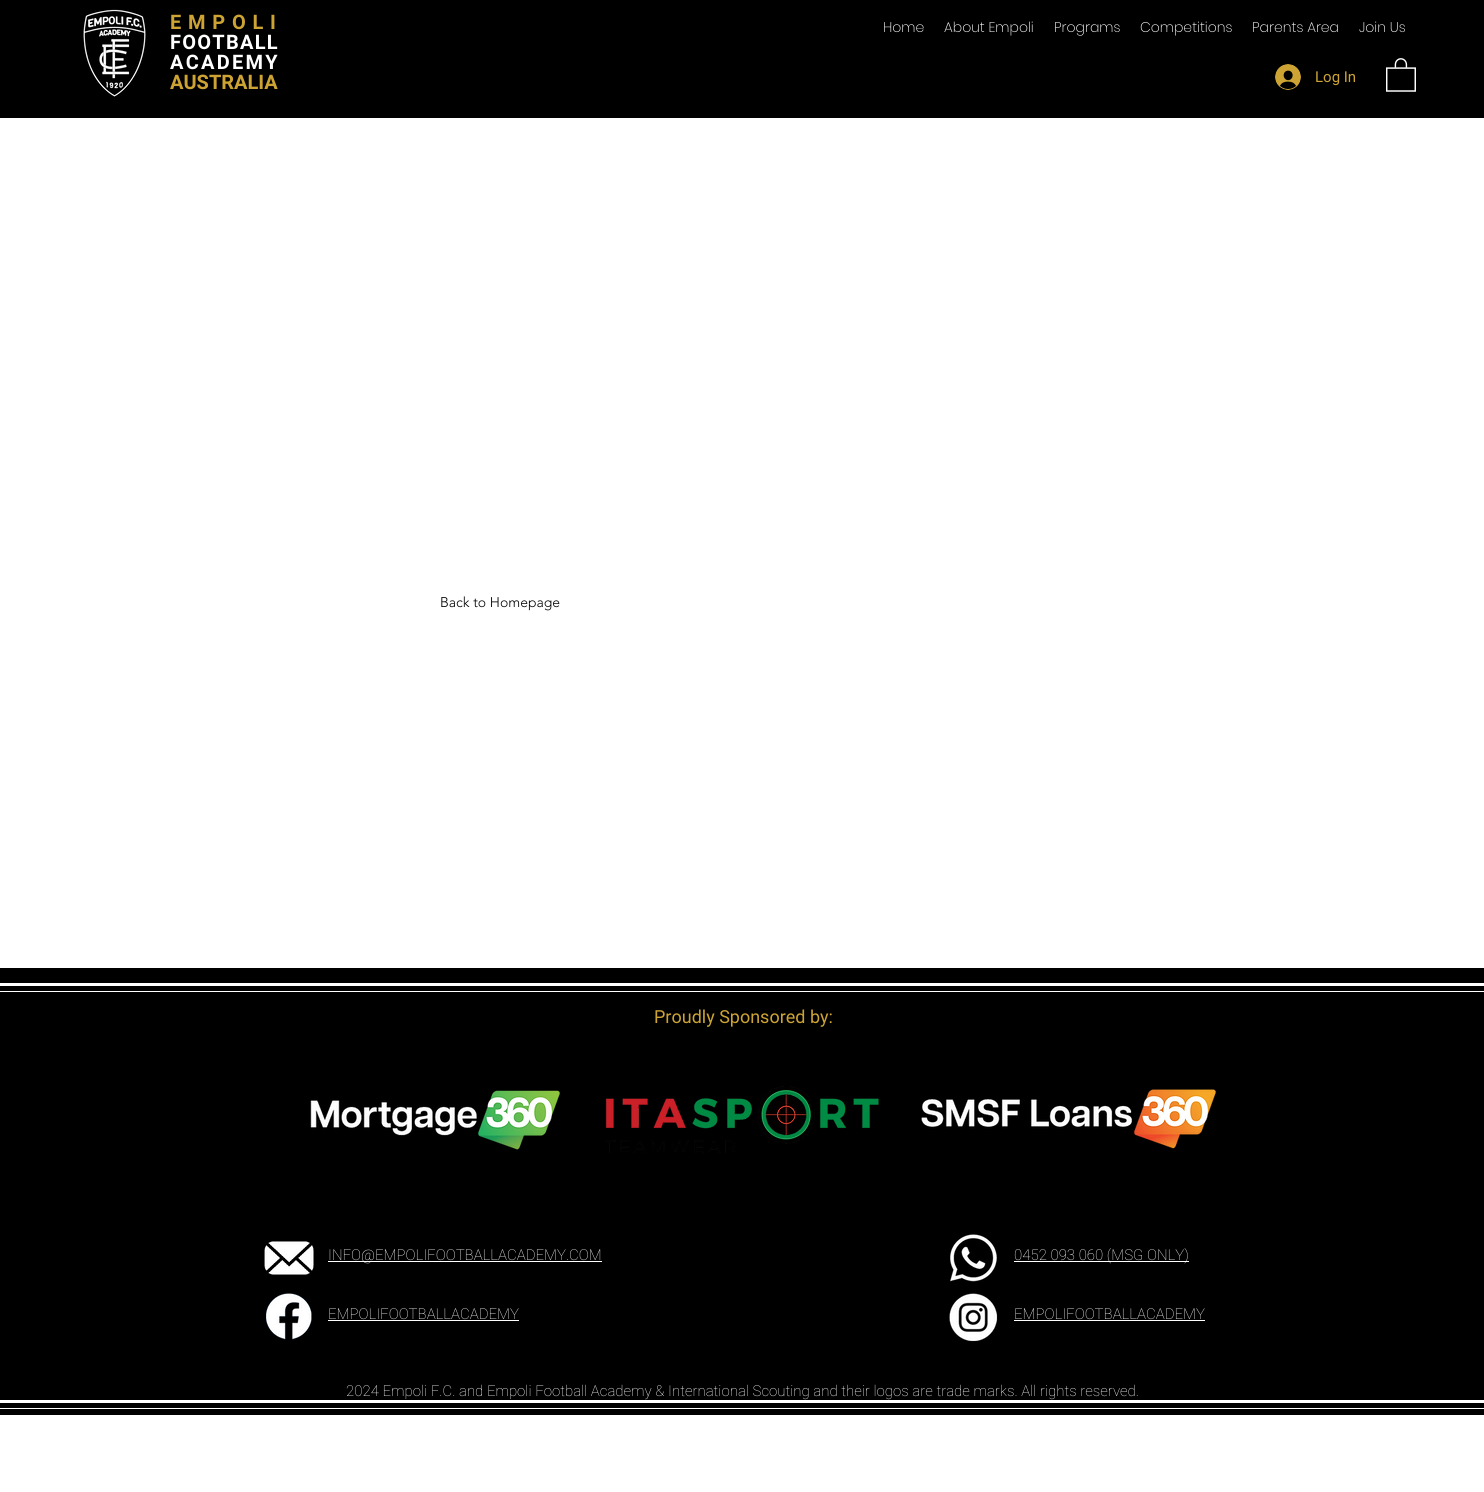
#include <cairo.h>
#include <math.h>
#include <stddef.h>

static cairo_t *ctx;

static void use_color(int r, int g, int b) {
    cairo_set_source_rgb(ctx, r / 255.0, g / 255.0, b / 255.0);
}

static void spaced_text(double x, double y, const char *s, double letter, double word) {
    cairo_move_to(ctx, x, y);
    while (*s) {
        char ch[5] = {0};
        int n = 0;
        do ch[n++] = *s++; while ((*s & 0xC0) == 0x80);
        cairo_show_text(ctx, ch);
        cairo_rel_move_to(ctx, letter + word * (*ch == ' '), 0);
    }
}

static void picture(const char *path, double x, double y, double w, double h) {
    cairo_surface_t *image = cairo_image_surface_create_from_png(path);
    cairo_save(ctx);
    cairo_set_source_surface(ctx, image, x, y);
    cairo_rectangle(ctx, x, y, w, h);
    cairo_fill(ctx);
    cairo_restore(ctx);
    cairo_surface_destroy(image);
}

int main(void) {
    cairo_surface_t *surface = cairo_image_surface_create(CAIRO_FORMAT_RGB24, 1484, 1492);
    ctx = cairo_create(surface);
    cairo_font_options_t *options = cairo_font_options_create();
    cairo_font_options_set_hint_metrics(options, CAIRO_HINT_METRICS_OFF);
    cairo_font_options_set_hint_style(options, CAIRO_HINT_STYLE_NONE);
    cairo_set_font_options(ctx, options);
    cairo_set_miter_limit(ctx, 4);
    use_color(255, 255, 255);
    cairo_paint(ctx);
    use_color(0, 0, 0);
    cairo_rectangle(ctx, 0, 0, 1484, 118);
    cairo_fill(ctx);
    picture("img1.png", 83, 9, 63, 88);
    cairo_select_font_face(ctx, "Roboto", CAIRO_FONT_SLANT_NORMAL, CAIRO_FONT_WEIGHT_BOLD);
    cairo_set_font_size(ctx, 20);
    use_color(205, 164, 52);
    spaced_text(170, 29, "EMPOLI", 6.75, 0);
    use_color(255, 255, 255);
    spaced_text(170, 49, "FOOTBALL", 1.25, 0);
    spaced_text(170, 69, "ACADEMY", 2.25, 0);
    use_color(205, 164, 52);
    cairo_move_to(ctx, 170, 89);
    cairo_show_text(ctx, "AUSTRALIA");
    cairo_select_font_face(ctx, "Poppins ExtraLight", CAIRO_FONT_SLANT_NORMAL, CAIRO_FONT_WEIGHT_NORMAL);
    cairo_set_font_size(ctx, 14);
    use_color(255, 255, 255);
    cairo_move_to(ctx, 883, 32);
    cairo_show_text(ctx, "Home");
    cairo_move_to(ctx, 944, 32);
    cairo_show_text(ctx, "About Empoli");
    cairo_move_to(ctx, 1054, 32);
    cairo_show_text(ctx, "Programs");
    cairo_move_to(ctx, 1140, 32);
    cairo_show_text(ctx, "Competitions");
    cairo_move_to(ctx, 1252, 32);
    cairo_show_text(ctx, "Parents Area");
    cairo_move_to(ctx, 1359, 32);
    cairo_show_text(ctx, "Join Us");
    picture("img2.png", 1275, 64, 26, 26);
    cairo_select_font_face(ctx, "Roboto", CAIRO_FONT_SLANT_NORMAL, CAIRO_FONT_WEIGHT_NORMAL);
    cairo_set_font_size(ctx, 15);
    use_color(205, 164, 52);
    cairo_move_to(ctx, 1315, 82);
    cairo_show_text(ctx, "Log In");
    picture("img3.png", 1386, 58, 30, 34);
    cairo_select_font_face(ctx, "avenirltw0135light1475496 Light", CAIRO_FONT_SLANT_NORMAL, CAIRO_FONT_WEIGHT_NORMAL);
    cairo_set_font_size(ctx, 14);
    use_color(0, 0, 0);
    cairo_move_to(ctx, 440, 607);
    cairo_show_text(ctx, "Back to Homepage");
    cairo_rectangle(ctx, 0, 968, 1484, 447);
    cairo_fill(ctx);
    use_color(255, 255, 255);
    cairo_rectangle(ctx, 0, 983, 1484, 3);
    cairo_fill(ctx);
    cairo_rectangle(ctx, 0, 991, 1484, 1);
    cairo_fill(ctx);
    cairo_select_font_face(ctx, "Roboto", CAIRO_FONT_SLANT_NORMAL, CAIRO_FONT_WEIGHT_NORMAL);
    cairo_set_font_size(ctx, 18);
    use_color(205, 164, 52);
    cairo_move_to(ctx, 654, 1023);
    cairo_show_text(ctx, "Proudly Sponsored by:");
    picture("img4.png", 605, 1086, 274, 67);
    picture("img5.png", 310, 1090, 250, 60);
    picture("img6.png", 921, 1089, 295, 60);
    picture("img7.png", 264, 1241, 50, 34);
    use_color(255, 255, 255);
    cairo_rectangle(ctx, 328, 1261, 274, 1);
    cairo_fill(ctx);
    cairo_select_font_face(ctx, "Roboto Thin", CAIRO_FONT_SLANT_NORMAL, CAIRO_FONT_WEIGHT_NORMAL);
    cairo_set_font_size(ctx, 15);
    cairo_move_to(ctx, 328, 1260);
    cairo_show_text(ctx, "INFO@EMPOLIFOOTBALLACADEMY.COM");
    picture("img8.png", 950, 1234, 47, 48);
    cairo_rectangle(ctx, 1014, 1261, 175, 1);
    cairo_fill(ctx);
    cairo_move_to(ctx, 1014, 1260);
    cairo_show_text(ctx, "0452 093 060 (MSG ONLY)");
    picture("img9.png", 266, 1293, 46, 47);
    cairo_move_to(ctx, 328, 1319);
    cairo_show_text(ctx, "EMPOLIFOOTBALLACADEMY");
    cairo_rectangle(ctx, 328, 1320, 191, 1);
    cairo_fill(ctx);
    picture("img10.png", 949, 1293, 49, 49);
    cairo_move_to(ctx, 1014, 1319);
    cairo_show_text(ctx, "EMPOLIFOOTBALLACADEMY");
    cairo_rectangle(ctx, 1014, 1320, 191, 1);
    cairo_fill(ctx);
    cairo_move_to(ctx, 346, 1396);
    cairo_show_text(ctx, "2024 Empoli F.C. and Empoli Football Academy & International Scouting and their logos are trade marks. All rights reserved.");
    cairo_rectangle(ctx, 0, 1400, 1484, 3);
    cairo_fill(ctx);
    cairo_rectangle(ctx, 0, 1408, 1484, 1);
    cairo_fill(ctx);
    cairo_surface_write_to_png(surface, "result.png");
    cairo_font_options_destroy(options);
    cairo_destroy(ctx);
    cairo_surface_destroy(surface);
    return 0;
}
